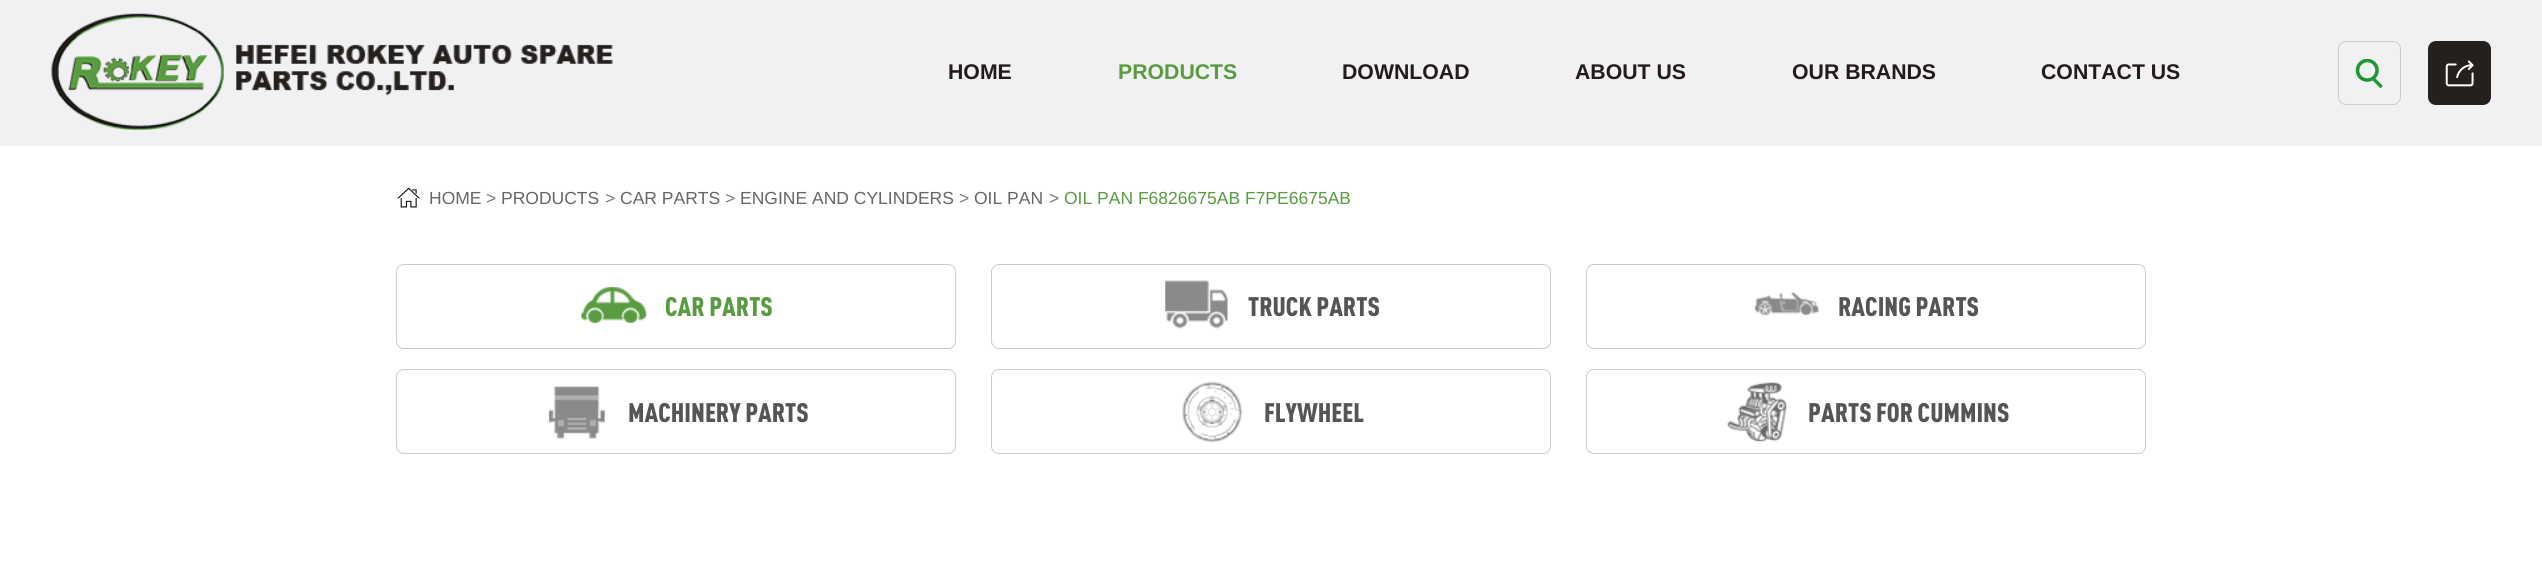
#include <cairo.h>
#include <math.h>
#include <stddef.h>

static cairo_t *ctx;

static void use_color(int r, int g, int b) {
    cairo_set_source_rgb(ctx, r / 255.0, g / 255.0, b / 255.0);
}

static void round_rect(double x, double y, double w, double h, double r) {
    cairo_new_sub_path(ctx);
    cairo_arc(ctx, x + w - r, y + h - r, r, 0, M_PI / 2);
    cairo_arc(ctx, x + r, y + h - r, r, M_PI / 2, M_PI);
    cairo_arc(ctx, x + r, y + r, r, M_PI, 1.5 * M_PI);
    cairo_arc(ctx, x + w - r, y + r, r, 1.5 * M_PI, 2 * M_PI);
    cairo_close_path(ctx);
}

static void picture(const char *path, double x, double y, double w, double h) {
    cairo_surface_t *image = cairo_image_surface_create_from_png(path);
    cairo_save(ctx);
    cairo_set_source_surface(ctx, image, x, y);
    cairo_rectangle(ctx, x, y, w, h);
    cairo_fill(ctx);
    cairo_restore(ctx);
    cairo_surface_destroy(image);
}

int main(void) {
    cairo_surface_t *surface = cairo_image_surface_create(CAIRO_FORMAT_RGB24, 2542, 582);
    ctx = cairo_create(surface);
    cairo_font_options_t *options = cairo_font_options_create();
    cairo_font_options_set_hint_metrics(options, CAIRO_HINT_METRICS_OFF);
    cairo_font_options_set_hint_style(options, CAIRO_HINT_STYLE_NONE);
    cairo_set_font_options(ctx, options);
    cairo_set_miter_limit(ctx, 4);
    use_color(255, 255, 255);
    cairo_paint(ctx);
    use_color(241, 241, 243);
    cairo_rectangle(ctx, 0, 0, 2542, 146);
    cairo_fill(ctx);
    picture("img1.png", 51, 13, 562, 117);
    cairo_select_font_face(ctx, "Liberation Sans", CAIRO_FONT_SLANT_NORMAL, CAIRO_FONT_WEIGHT_BOLD);
    cairo_set_font_size(ctx, 21.25);
    use_color(36, 26, 27);
    cairo_move_to(ctx, 948, 79);
    cairo_show_text(ctx, "HOME");
    use_color(88, 155, 64);
    cairo_move_to(ctx, 1118, 79);
    cairo_show_text(ctx, "PRODUCTS");
    use_color(36, 26, 27);
    cairo_move_to(ctx, 1342, 79);
    cairo_show_text(ctx, "DOWNLOAD");
    cairo_move_to(ctx, 1575, 79);
    cairo_show_text(ctx, "ABOUT US");
    cairo_move_to(ctx, 1792, 79);
    cairo_show_text(ctx, "OUR BRANDS");
    cairo_move_to(ctx, 2041, 79);
    cairo_show_text(ctx, "CONTACT US");
    picture("img2.png", 2355, 59, 28, 29);
    round_rect(2338.5, 41.5, 62, 63, 7.5);
    use_color(204, 204, 204);
    cairo_set_line_width(ctx, 1);
    cairo_stroke(ctx);
    use_color(36, 32, 29);
    round_rect(2428, 41, 63, 64, 8);
    cairo_fill(ctx);
    picture("img3.png", 2445, 60, 29, 27);
    picture("img4.png", 397, 187, 23, 21);
    cairo_select_font_face(ctx, "Liberation Sans", CAIRO_FONT_SLANT_NORMAL, CAIRO_FONT_WEIGHT_NORMAL);
    cairo_set_font_size(ctx, 17.5);
    use_color(102, 102, 102);
    cairo_move_to(ctx, 429, 204);
    cairo_show_text(ctx, "HOME");
    use_color(119, 119, 119);
    cairo_move_to(ctx, 486, 204);
    cairo_show_text(ctx, ">");
    use_color(102, 102, 102);
    cairo_move_to(ctx, 501, 204);
    cairo_show_text(ctx, "PRODUCTS");
    use_color(119, 119, 119);
    cairo_move_to(ctx, 605, 204);
    cairo_show_text(ctx, ">");
    use_color(102, 102, 102);
    cairo_move_to(ctx, 620, 204);
    cairo_show_text(ctx, "CAR PARTS");
    use_color(119, 119, 119);
    cairo_move_to(ctx, 725, 204);
    cairo_show_text(ctx, ">");
    use_color(102, 102, 102);
    cairo_move_to(ctx, 740, 204);
    cairo_show_text(ctx, "ENGINE AND CYLINDERS");
    use_color(119, 119, 119);
    cairo_move_to(ctx, 959, 204);
    cairo_show_text(ctx, ">");
    use_color(102, 102, 102);
    cairo_move_to(ctx, 974, 204);
    cairo_show_text(ctx, "OIL PAN");
    use_color(119, 119, 119);
    cairo_move_to(ctx, 1049, 204);
    cairo_show_text(ctx, ">");
    use_color(88, 155, 64);
    cairo_move_to(ctx, 1064, 204);
    cairo_show_text(ctx, "OIL PAN F6826675AB F7PE6675AB");
    round_rect(396.5, 264.5, 559, 84, 7.5);
    use_color(204, 204, 204);
    cairo_stroke(ctx);
    picture("img5.png", 581, 286, 66, 38);
    cairo_select_font_face(ctx, "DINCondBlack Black", CAIRO_FONT_SLANT_NORMAL, CAIRO_FONT_WEIGHT_NORMAL);
    cairo_set_font_size(ctx, 26.5);
    use_color(88, 155, 64);
    cairo_move_to(ctx, 665, 316);
    cairo_show_text(ctx, "CAR PARTS");
    round_rect(991.5, 264.5, 559, 84, 7.5);
    use_color(204, 204, 204);
    cairo_stroke(ctx);
    picture("img6.png", 1165, 280, 63, 49);
    use_color(85, 85, 85);
    cairo_move_to(ctx, 1248, 316);
    cairo_show_text(ctx, "TRUCK PARTS");
    round_rect(1586.5, 264.5, 559, 84, 7.5);
    use_color(204, 204, 204);
    cairo_stroke(ctx);
    picture("img7.png", 1754, 292, 65, 24);
    use_color(85, 85, 85);
    cairo_move_to(ctx, 1838, 316);
    cairo_show_text(ctx, "RACING PARTS");
    round_rect(396.5, 369.5, 559, 84, 7.5);
    use_color(204, 204, 204);
    cairo_stroke(ctx);
    picture("img8.png", 548, 386, 57, 53);
    use_color(85, 85, 85);
    cairo_move_to(ctx, 628, 422);
    cairo_show_text(ctx, "MACHINERY PARTS");
    round_rect(991.5, 369.5, 559, 84, 7.5);
    use_color(204, 204, 204);
    cairo_stroke(ctx);
    picture("img9.png", 1181, 381, 62, 62);
    use_color(85, 85, 85);
    cairo_move_to(ctx, 1264, 422);
    cairo_show_text(ctx, "FLYWHEEL");
    round_rect(1586.5, 369.5, 559, 84, 7.5);
    use_color(204, 204, 204);
    cairo_stroke(ctx);
    picture("img10.png", 1727, 382, 60, 60);
    use_color(85, 85, 85);
    cairo_move_to(ctx, 1808, 422);
    cairo_show_text(ctx, "PARTS FOR CUMMINS");
    cairo_surface_write_to_png(surface, "result.png");
    cairo_font_options_destroy(options);
    cairo_destroy(ctx);
    cairo_surface_destroy(surface);
    return 0;
}
